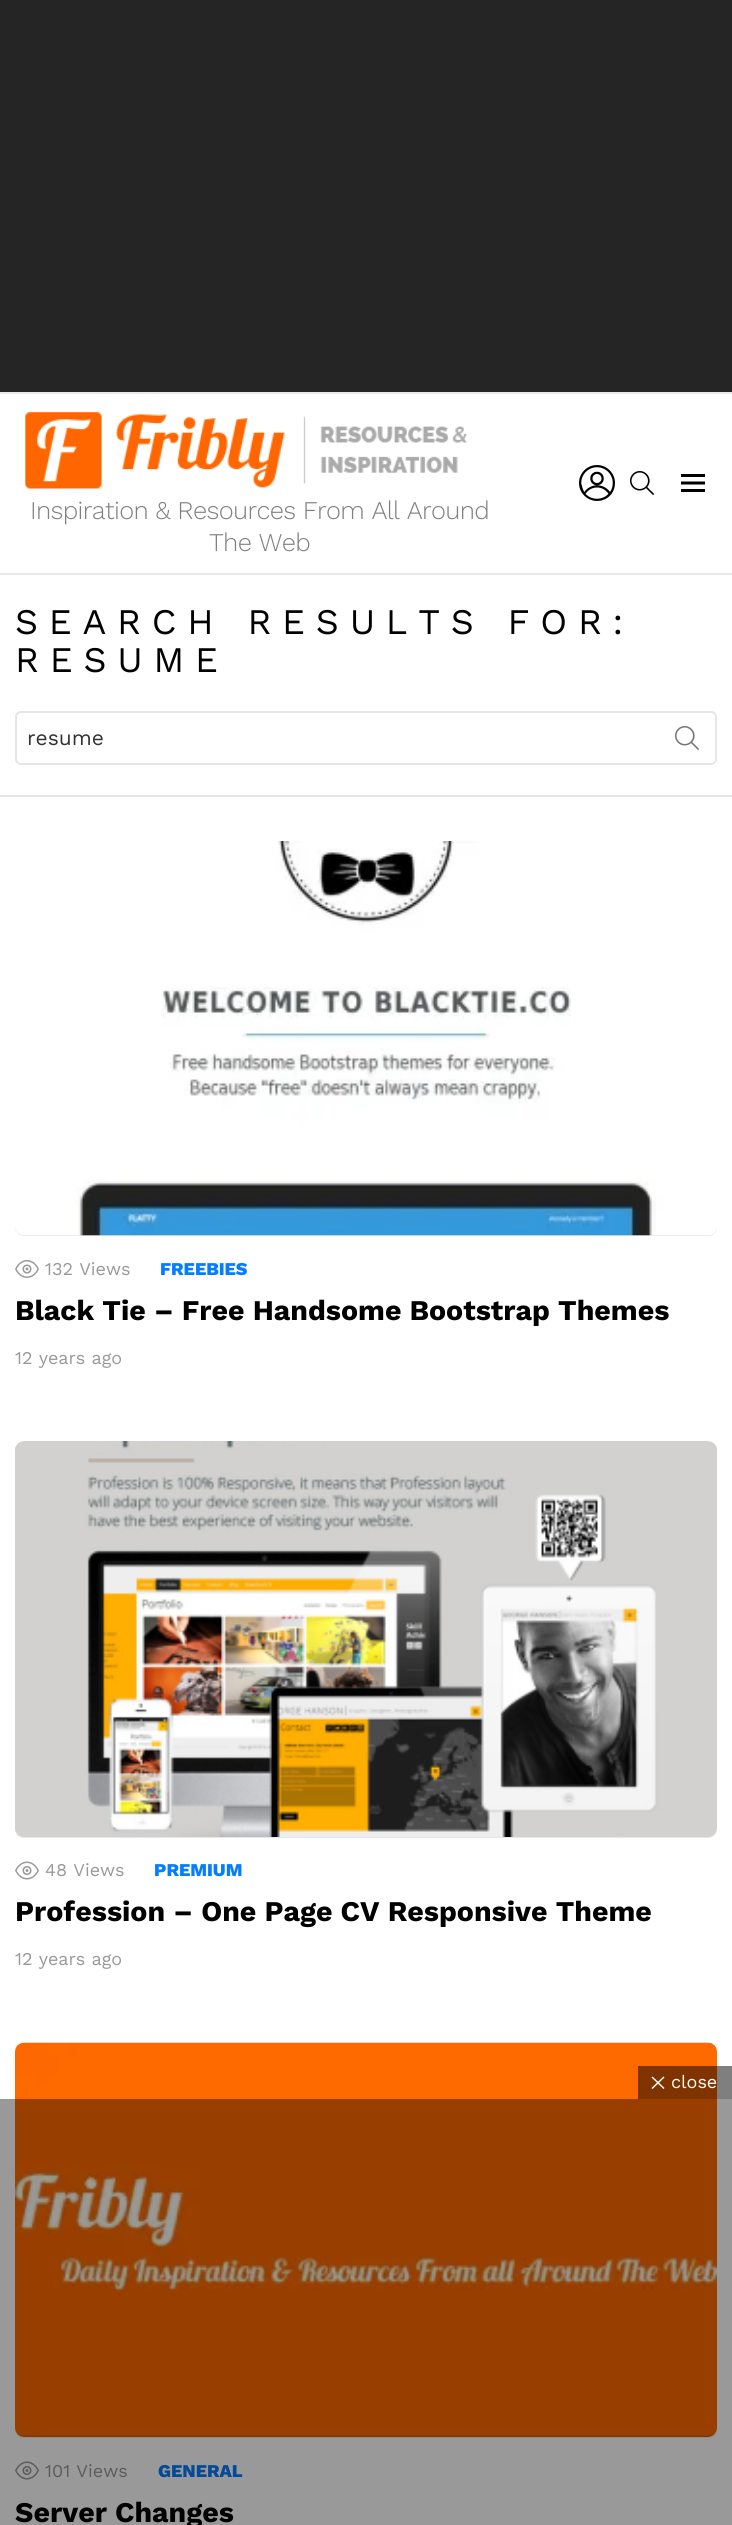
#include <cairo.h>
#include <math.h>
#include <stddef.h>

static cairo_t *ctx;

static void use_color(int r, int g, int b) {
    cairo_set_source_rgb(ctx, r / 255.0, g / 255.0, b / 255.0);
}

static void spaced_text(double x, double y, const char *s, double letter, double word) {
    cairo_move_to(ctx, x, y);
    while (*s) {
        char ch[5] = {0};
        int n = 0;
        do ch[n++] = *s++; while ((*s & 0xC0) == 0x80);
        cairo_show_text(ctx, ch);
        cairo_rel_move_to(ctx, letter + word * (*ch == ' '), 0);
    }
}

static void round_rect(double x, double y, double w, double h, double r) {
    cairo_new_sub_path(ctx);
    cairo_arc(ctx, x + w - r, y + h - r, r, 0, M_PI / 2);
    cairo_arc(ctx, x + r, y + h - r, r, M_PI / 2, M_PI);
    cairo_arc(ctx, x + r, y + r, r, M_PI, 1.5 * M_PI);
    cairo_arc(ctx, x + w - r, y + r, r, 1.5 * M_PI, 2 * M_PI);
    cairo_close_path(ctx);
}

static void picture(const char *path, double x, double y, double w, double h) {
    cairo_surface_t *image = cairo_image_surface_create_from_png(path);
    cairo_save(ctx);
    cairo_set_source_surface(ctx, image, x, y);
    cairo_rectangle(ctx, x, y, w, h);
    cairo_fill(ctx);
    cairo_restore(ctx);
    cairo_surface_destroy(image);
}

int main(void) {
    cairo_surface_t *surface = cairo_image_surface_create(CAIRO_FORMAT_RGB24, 732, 2525);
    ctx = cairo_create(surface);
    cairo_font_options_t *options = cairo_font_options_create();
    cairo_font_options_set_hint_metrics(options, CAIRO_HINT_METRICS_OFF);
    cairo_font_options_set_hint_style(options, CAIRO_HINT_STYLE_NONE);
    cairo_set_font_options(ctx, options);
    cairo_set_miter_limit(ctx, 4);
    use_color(255, 255, 255);
    cairo_paint(ctx);
    use_color(37, 37, 37);
    cairo_rectangle(ctx, 0, 0, 732, 392);
    cairo_fill(ctx);
    use_color(233, 233, 233);
    cairo_rectangle(ctx, 0, 392, 732, 2);
    cairo_fill(ctx);
    picture("img1.png", 579, 465, 36, 36);
    picture("img2.png", 630, 471, 24, 24);
    picture("img3.png", 681, 474, 24, 18);
    picture("img4.png", 25, 412, 443, 77);
    cairo_select_font_face(ctx, "Work Sans Light", CAIRO_FONT_SLANT_NORMAL, CAIRO_FONT_WEIGHT_NORMAL);
    cairo_set_font_size(ctx, 25.5);
    use_color(128, 128, 128);
    spaced_text(30, 519, "Inspiration & Resources From All Around", -0.65, 0);
    spaced_text(209, 551, "The Web", -0.65, 0);
    use_color(233, 233, 233);
    cairo_rectangle(ctx, 0, 573, 732, 2);
    cairo_fill(ctx);
    cairo_select_font_face(ctx, "Work Sans", CAIRO_FONT_SLANT_NORMAL, CAIRO_FONT_WEIGHT_NORMAL);
    cairo_set_font_size(ctx, 36);
    use_color(0, 0, 0);
    spaced_text(15, 634, "SEARCH RESULTS FOR:", 10.75, 0);
    spaced_text(15, 672, "RESUME", 10.75, 0);
    round_rect(16, 712, 700, 52, 5);
    use_color(230, 230, 230);
    cairo_stroke(ctx);
    cairo_set_font_size(ctx, 21);
    use_color(51, 51, 51);
    cairo_move_to(ctx, 27, 745);
    cairo_show_text(ctx, "resume");
    picture("img5.png", 675, 726, 24, 24);
    use_color(230, 230, 230);
    cairo_rectangle(ctx, 0, 795, 732, 2);
    cairo_fill(ctx);
    round_rect(15, 842, 702, 394, 9);
    cairo_fill(ctx);
    picture("img6.png", 15, 841, 702, 395);
    picture("img7.png", 15, 1260, 24, 18);
    cairo_set_font_size(ctx, 18);
    use_color(153, 153, 153);
    cairo_move_to(ctx, 45, 1275);
    cairo_show_text(ctx, "132 Views");
    cairo_select_font_face(ctx, "Work Sans ExtraBold", CAIRO_FONT_SLANT_NORMAL, CAIRO_FONT_WEIGHT_NORMAL);
    use_color(5, 125, 255);
    cairo_move_to(ctx, 160, 1275);
    cairo_show_text(ctx, "FREEBIES");
    cairo_select_font_face(ctx, "Work Sans", CAIRO_FONT_SLANT_NORMAL, CAIRO_FONT_WEIGHT_BOLD);
    cairo_set_font_size(ctx, 28.5);
    use_color(0, 0, 0);
    cairo_move_to(ctx, 15, 1320);
    cairo_show_text(ctx, "Black Tie – Free Handsome Bootstrap Themes");
    cairo_select_font_face(ctx, "Work Sans", CAIRO_FONT_SLANT_NORMAL, CAIRO_FONT_WEIGHT_NORMAL);
    cairo_set_font_size(ctx, 18);
    use_color(153, 153, 153);
    cairo_move_to(ctx, 15, 1364);
    cairo_show_text(ctx, "12 years ago");
    use_color(230, 230, 230);
    round_rect(15, 1442, 702, 396, 9);
    cairo_fill(ctx);
    picture("img8.png", 15, 1441, 702, 396);
    picture("img9.png", 15, 1861, 24, 19);
    use_color(153, 153, 153);
    cairo_move_to(ctx, 45, 1876);
    cairo_show_text(ctx, "48 Views");
    cairo_select_font_face(ctx, "Work Sans ExtraBold", CAIRO_FONT_SLANT_NORMAL, CAIRO_FONT_WEIGHT_NORMAL);
    use_color(5, 125, 255);
    cairo_move_to(ctx, 154, 1876);
    cairo_show_text(ctx, "PREMIUM");
    cairo_select_font_face(ctx, "Work Sans", CAIRO_FONT_SLANT_NORMAL, CAIRO_FONT_WEIGHT_BOLD);
    cairo_set_font_size(ctx, 28.5);
    use_color(0, 0, 0);
    cairo_move_to(ctx, 15, 1921);
    cairo_show_text(ctx, "Profession – One Page CV Responsive Theme");
    cairo_select_font_face(ctx, "Work Sans", CAIRO_FONT_SLANT_NORMAL, CAIRO_FONT_WEIGHT_NORMAL);
    cairo_set_font_size(ctx, 18);
    use_color(153, 153, 153);
    cairo_move_to(ctx, 15, 1965);
    cairo_show_text(ctx, "12 years ago");
    use_color(230, 230, 230);
    round_rect(15, 2043, 702, 395, 9);
    cairo_fill(ctx);
    picture("img10.png", 15, 2042, 702, 395);
    picture("img9.png", 15, 2461, 24, 19);
    use_color(153, 153, 153);
    cairo_move_to(ctx, 45, 2477);
    cairo_show_text(ctx, "101 Views");
    cairo_select_font_face(ctx, "Work Sans ExtraBold", CAIRO_FONT_SLANT_NORMAL, CAIRO_FONT_WEIGHT_NORMAL);
    use_color(5, 125, 255);
    cairo_move_to(ctx, 158, 2477);
    cairo_show_text(ctx, "GENERAL");
    cairo_select_font_face(ctx, "Work Sans", CAIRO_FONT_SLANT_NORMAL, CAIRO_FONT_WEIGHT_BOLD);
    cairo_set_font_size(ctx, 28.5);
    use_color(0, 0, 0);
    cairo_move_to(ctx, 15, 2522);
    cairo_show_text(ctx, "Server Changes");
    cairo_set_source_rgba(ctx, 0, 0, 0, 0.4);
    cairo_rectangle(ctx, 0, 2099, 732, 426);
    cairo_fill(ctx);
    cairo_set_source_rgba(ctx, 0, 0, 0, 0.5);
    cairo_rectangle(ctx, 638, 2066, 94, 33);
    cairo_fill(ctx);
    use_color(255, 255, 255);
    cairo_new_path(ctx);
    cairo_move_to(ctx, 652.5, 2076.5);
    cairo_line_to(ctx, 664.5, 2088);
    cairo_line_to(ctx, 663.5, 2089);
    cairo_line_to(ctx, 651.5, 2077.5);
    cairo_close_path(ctx);
    cairo_fill(ctx);
    cairo_select_font_face(ctx, "Work Sans", CAIRO_FONT_SLANT_NORMAL, CAIRO_FONT_WEIGHT_NORMAL);
    cairo_set_font_size(ctx, 18);
    cairo_move_to(ctx, 671, 2088);
    cairo_show_text(ctx, "close");
    cairo_new_path(ctx);
    cairo_move_to(ctx, 663.5, 2076.5);
    cairo_line_to(ctx, 664.5, 2077.5);
    cairo_line_to(ctx, 652.5, 2089);
    cairo_line_to(ctx, 651.5, 2088);
    cairo_close_path(ctx);
    cairo_fill(ctx);
    cairo_surface_write_to_png(surface, "result.png");
    cairo_font_options_destroy(options);
    cairo_destroy(ctx);
    cairo_surface_destroy(surface);
    return 0;
}
